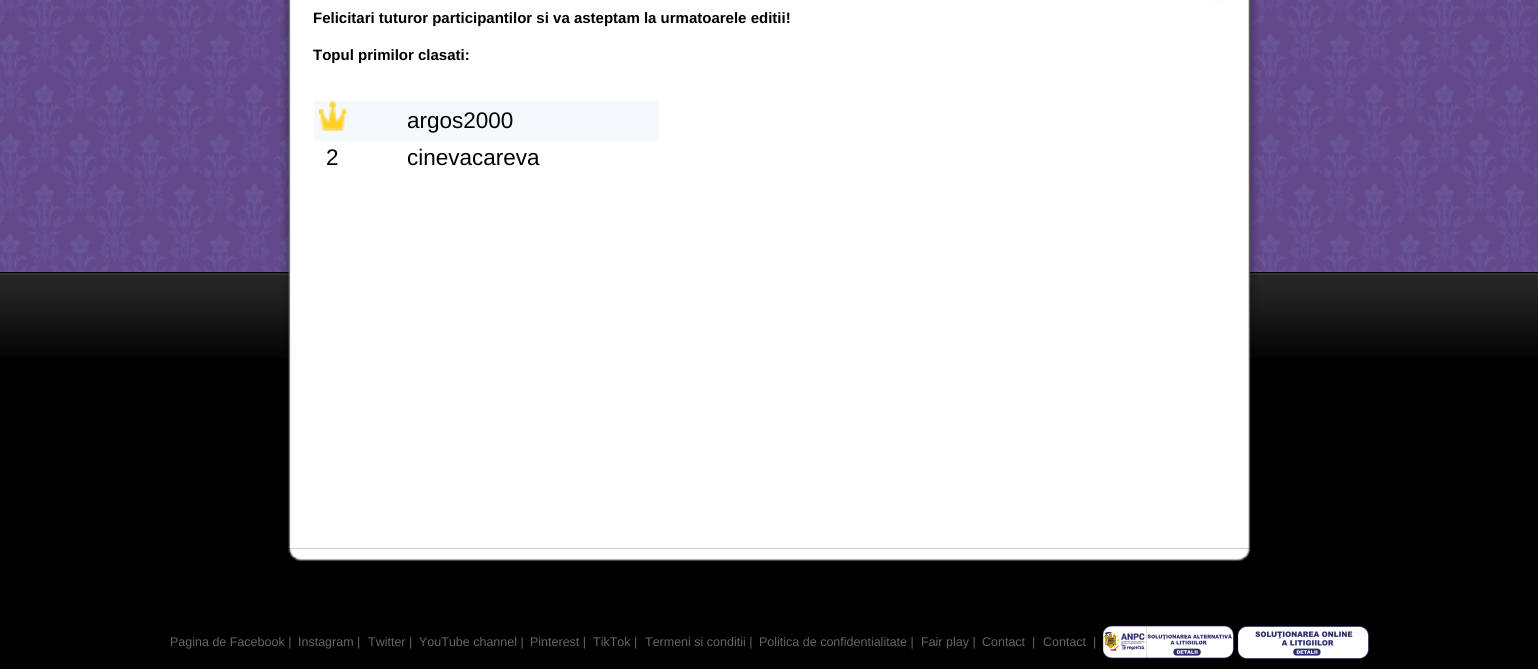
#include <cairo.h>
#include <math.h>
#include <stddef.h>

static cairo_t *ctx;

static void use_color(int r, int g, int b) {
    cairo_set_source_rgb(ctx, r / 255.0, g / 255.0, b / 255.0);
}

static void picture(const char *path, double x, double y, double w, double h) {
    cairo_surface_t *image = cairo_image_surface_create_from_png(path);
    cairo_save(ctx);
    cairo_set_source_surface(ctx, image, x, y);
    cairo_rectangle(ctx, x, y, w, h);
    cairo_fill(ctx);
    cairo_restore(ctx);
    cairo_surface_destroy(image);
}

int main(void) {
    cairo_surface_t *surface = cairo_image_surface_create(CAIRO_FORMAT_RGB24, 1538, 669);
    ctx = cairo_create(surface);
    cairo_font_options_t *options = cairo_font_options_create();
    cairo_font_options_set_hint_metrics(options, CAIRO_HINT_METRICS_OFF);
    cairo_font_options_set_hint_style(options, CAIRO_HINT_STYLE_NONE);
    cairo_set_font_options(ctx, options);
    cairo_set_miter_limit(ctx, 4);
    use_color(0, 0, 0);
    cairo_paint(ctx);
    use_color(91, 71, 147);
    cairo_rectangle(ctx, 0, 0, 1538, 272);
    cairo_fill(ctx);
    picture("img1.png", 0, 0, 1538, 272);
    picture("img2.png", 0, 272, 1538, 86);
    picture("img3.png", 280, 0, 979, 549);
    use_color(250, 250, 250);
    cairo_rectangle(ctx, 1211, 0, 9, 1);
    cairo_fill(ctx);
    cairo_select_font_face(ctx, "Liberation Sans", CAIRO_FONT_SLANT_NORMAL, CAIRO_FONT_WEIGHT_BOLD);
    cairo_set_font_size(ctx, 15);
    use_color(0, 0, 0);
    cairo_move_to(ctx, 313, 23);
    cairo_show_text(ctx, "Felicitari tuturor participantilor si va asteptam la urmatoarele editii!");
    cairo_move_to(ctx, 313, 60);
    cairo_show_text(ctx, "Topul primilor clasati:");
    use_color(244, 249, 254);
    cairo_rectangle(ctx, 314, 101, 344, 40);
    cairo_fill(ctx);
    picture("img4.png", 318, 100, 29, 31);
    cairo_select_font_face(ctx, "Liberation Sans", CAIRO_FONT_SLANT_NORMAL, CAIRO_FONT_WEIGHT_NORMAL);
    cairo_set_font_size(ctx, 22.5);
    use_color(0, 0, 0);
    cairo_move_to(ctx, 407, 128);
    cairo_show_text(ctx, "argos2000");
    cairo_move_to(ctx, 326, 165);
    cairo_show_text(ctx, "2");
    cairo_move_to(ctx, 407, 165);
    cairo_show_text(ctx, "cinevacareva");
    picture("img5.png", 288, 548, 963, 13);
    cairo_set_font_size(ctx, 12.5);
    use_color(102, 102, 102);
    cairo_move_to(ctx, 170, 646);
    cairo_show_text(ctx, "Pagina de Facebook |");
    cairo_move_to(ctx, 298, 646);
    cairo_show_text(ctx, "Instagram |");
    cairo_move_to(ctx, 368, 646);
    cairo_show_text(ctx, "Twitter |");
    cairo_move_to(ctx, 419, 646);
    cairo_show_text(ctx, "YouTube channel |");
    cairo_move_to(ctx, 530, 646);
    cairo_show_text(ctx, "Pinterest |");
    cairo_move_to(ctx, 593, 646);
    cairo_show_text(ctx, "TikTok |");
    cairo_move_to(ctx, 645, 646);
    cairo_show_text(ctx, "Termeni si conditii |");
    cairo_move_to(ctx, 759, 646);
    cairo_show_text(ctx, "Politica de confidentialitate |");
    cairo_move_to(ctx, 921, 646);
    cairo_show_text(ctx, "Fair play |");
    cairo_move_to(ctx, 982, 646);
    cairo_show_text(ctx, "Contact");
    cairo_move_to(ctx, 1032, 646);
    cairo_show_text(ctx, "|");
    cairo_move_to(ctx, 1043, 646);
    cairo_show_text(ctx, "Contact");
    cairo_move_to(ctx, 1093, 646);
    cairo_show_text(ctx, "|");
    picture("img6.png", 1103, 625, 131, 34);
    picture("img7.png", 1238, 626, 131, 33);
    cairo_surface_write_to_png(surface, "result.png");
    cairo_font_options_destroy(options);
    cairo_destroy(ctx);
    cairo_surface_destroy(surface);
    return 0;
}
